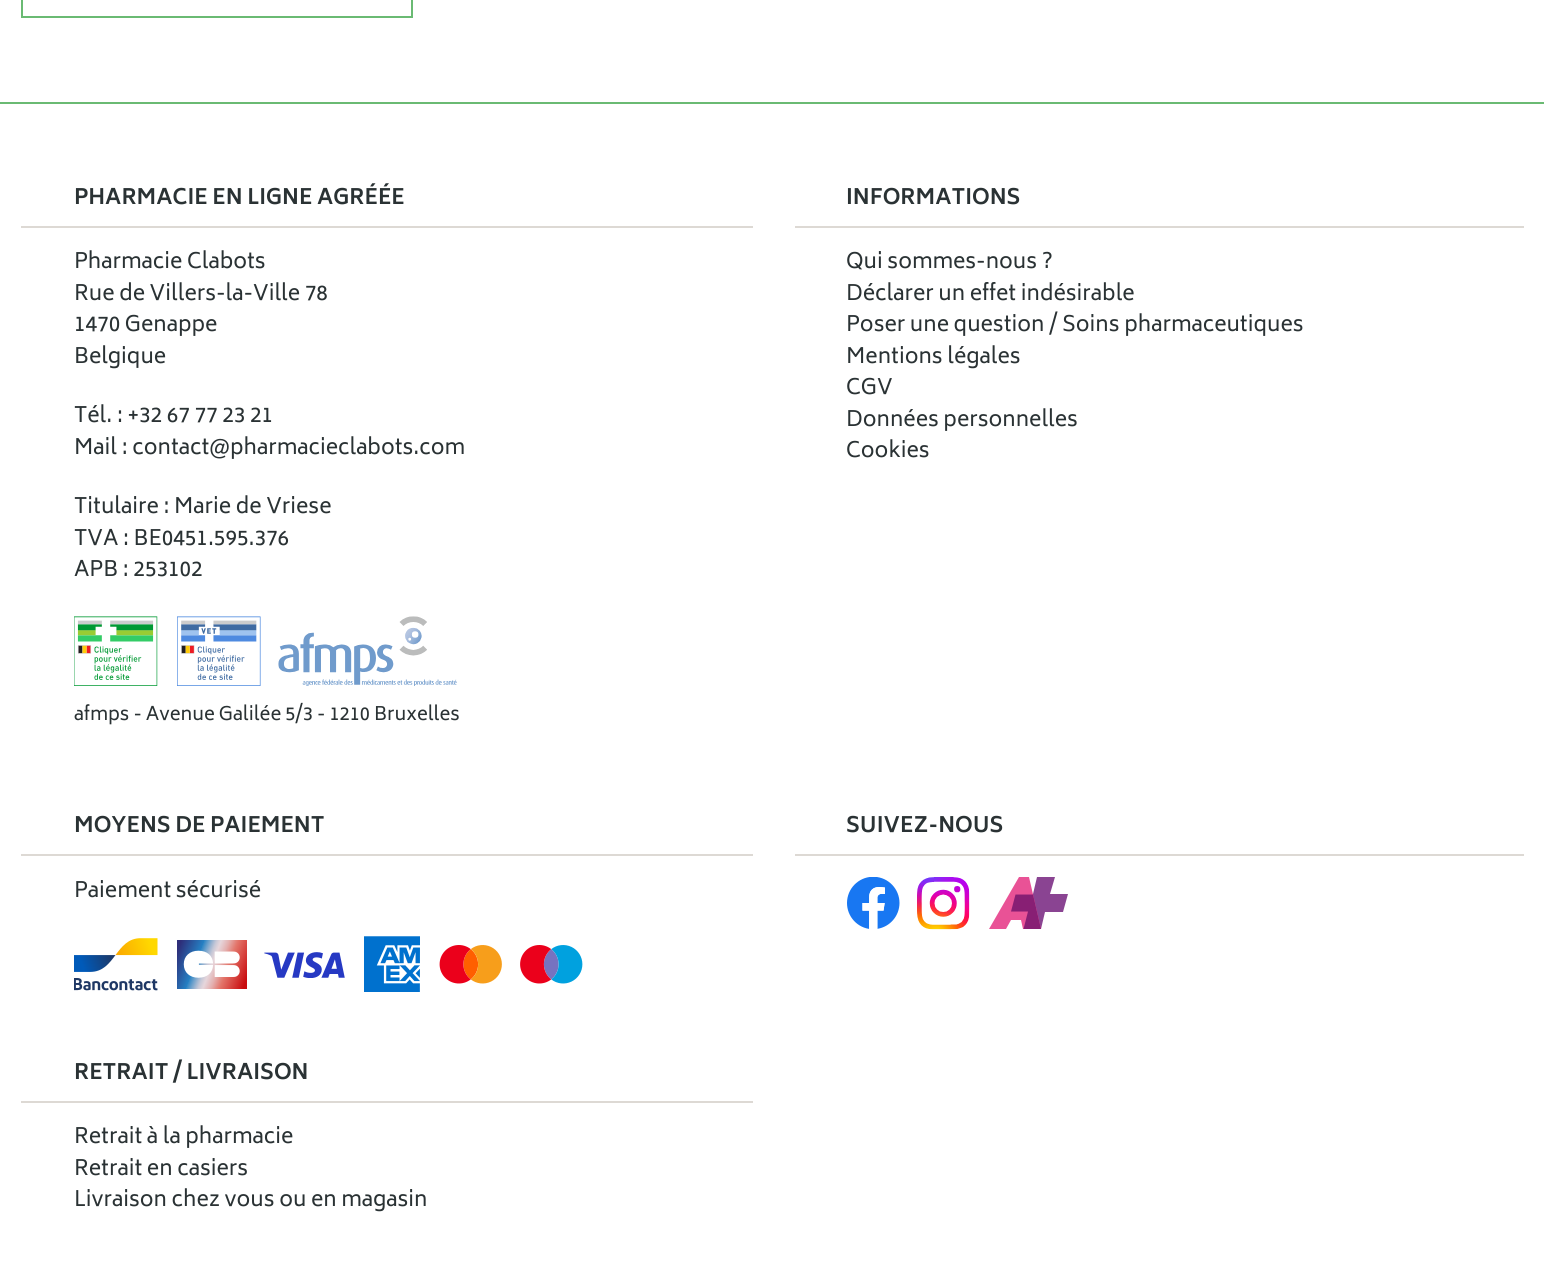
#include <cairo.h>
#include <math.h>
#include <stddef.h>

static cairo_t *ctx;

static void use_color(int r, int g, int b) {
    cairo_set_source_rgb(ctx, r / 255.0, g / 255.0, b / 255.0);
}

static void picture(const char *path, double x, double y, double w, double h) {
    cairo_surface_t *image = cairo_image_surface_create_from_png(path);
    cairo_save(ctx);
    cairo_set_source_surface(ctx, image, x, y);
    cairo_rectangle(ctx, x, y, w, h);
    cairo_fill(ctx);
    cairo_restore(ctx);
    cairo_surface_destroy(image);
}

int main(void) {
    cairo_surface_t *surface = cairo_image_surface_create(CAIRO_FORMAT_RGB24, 1544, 1262);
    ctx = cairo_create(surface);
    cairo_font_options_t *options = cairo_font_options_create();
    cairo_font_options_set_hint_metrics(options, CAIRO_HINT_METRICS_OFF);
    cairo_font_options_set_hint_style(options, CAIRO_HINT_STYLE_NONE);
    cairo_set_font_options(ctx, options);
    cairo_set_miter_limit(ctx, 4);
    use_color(255, 255, 255);
    cairo_paint(ctx);
    cairo_rectangle(ctx, 22, -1, 390, 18);
    use_color(106, 186, 115);
    cairo_stroke(ctx);
    cairo_rectangle(ctx, 0, 102, 1544, 2);
    cairo_fill(ctx);
    use_color(221, 217, 212);
    cairo_rectangle(ctx, 21, 226, 732, 2);
    cairo_fill(ctx);
    cairo_select_font_face(ctx, "Biryani", CAIRO_FONT_SLANT_NORMAL, CAIRO_FONT_WEIGHT_BOLD);
    cairo_set_font_size(ctx, 21);
    use_color(42, 50, 52);
    cairo_move_to(ctx, 74, 204);
    cairo_show_text(ctx, "PHARMACIE EN LIGNE AGRÉÉE");
    cairo_select_font_face(ctx, "Biryani", CAIRO_FONT_SLANT_NORMAL, CAIRO_FONT_WEIGHT_NORMAL);
    cairo_move_to(ctx, 74, 268);
    cairo_show_text(ctx, "Pharmacie Clabots");
    cairo_move_to(ctx, 74, 300);
    cairo_show_text(ctx, "Rue de Villers-la-Ville 78");
    cairo_move_to(ctx, 74, 331);
    cairo_show_text(ctx, "1470 Genappe");
    cairo_move_to(ctx, 74, 363);
    cairo_show_text(ctx, "Belgique");
    cairo_move_to(ctx, 74, 422);
    cairo_show_text(ctx, "Tél. : +32 67 77 23 21");
    cairo_move_to(ctx, 74, 454);
    cairo_show_text(ctx, "Mail : contact@pharmacieclabots.com");
    cairo_move_to(ctx, 74, 513);
    cairo_show_text(ctx, "Titulaire : Marie de Vriese");
    cairo_move_to(ctx, 74, 545);
    cairo_show_text(ctx, "TVA : BE0451.595.376");
    cairo_move_to(ctx, 74, 576);
    cairo_show_text(ctx, "APB : 253102");
    picture("img1.png", 74, 616, 84, 70);
    picture("img2.png", 177, 616, 84, 70);
    picture("img3.png", 278, 616, 179, 70);
    cairo_set_font_size(ctx, 18.4);
    cairo_move_to(ctx, 74, 720);
    cairo_show_text(ctx, "afmps - Avenue Galilée 5/3 - 1210 Bruxelles");
    use_color(221, 217, 212);
    cairo_rectangle(ctx, 795, 226, 729, 2);
    cairo_fill(ctx);
    cairo_select_font_face(ctx, "Biryani", CAIRO_FONT_SLANT_NORMAL, CAIRO_FONT_WEIGHT_BOLD);
    cairo_set_font_size(ctx, 21);
    use_color(42, 50, 52);
    cairo_move_to(ctx, 846, 204);
    cairo_show_text(ctx, "INFORMATIONS");
    cairo_select_font_face(ctx, "Biryani", CAIRO_FONT_SLANT_NORMAL, CAIRO_FONT_WEIGHT_NORMAL);
    cairo_move_to(ctx, 846, 268);
    cairo_show_text(ctx, "Qui sommes-nous ?");
    cairo_move_to(ctx, 846, 300);
    cairo_show_text(ctx, "Déclarer un effet indésirable");
    cairo_move_to(ctx, 846, 331);
    cairo_show_text(ctx, "Poser une question / Soins pharmaceutiques");
    cairo_move_to(ctx, 846, 363);
    cairo_show_text(ctx, "Mentions légales");
    cairo_move_to(ctx, 846, 394);
    cairo_show_text(ctx, "CGV");
    cairo_move_to(ctx, 846, 426);
    cairo_show_text(ctx, "Données personnelles");
    cairo_move_to(ctx, 846, 457);
    cairo_show_text(ctx, "Cookies");
    use_color(221, 217, 212);
    cairo_rectangle(ctx, 21, 854, 732, 2);
    cairo_fill(ctx);
    cairo_select_font_face(ctx, "Biryani", CAIRO_FONT_SLANT_NORMAL, CAIRO_FONT_WEIGHT_BOLD);
    use_color(42, 50, 52);
    cairo_move_to(ctx, 74, 832);
    cairo_show_text(ctx, "MOYENS DE PAIEMENT");
    cairo_select_font_face(ctx, "Biryani", CAIRO_FONT_SLANT_NORMAL, CAIRO_FONT_WEIGHT_NORMAL);
    cairo_move_to(ctx, 74, 897);
    cairo_show_text(ctx, "Paiement sécurisé");
    picture("img4.png", 74, 938, 84, 53);
    picture("img5.png", 177, 940, 70, 49);
    picture("img6.png", 264, 952, 81, 26);
    picture("img7.png", 364, 936, 56, 56);
    picture("img8.png", 439, 945, 63, 39);
    picture("img9.png", 520, 945, 63, 39);
    use_color(221, 217, 212);
    cairo_rectangle(ctx, 21, 1101, 732, 2);
    cairo_fill(ctx);
    cairo_select_font_face(ctx, "Biryani", CAIRO_FONT_SLANT_NORMAL, CAIRO_FONT_WEIGHT_BOLD);
    use_color(42, 50, 52);
    cairo_move_to(ctx, 74, 1079);
    cairo_show_text(ctx, "RETRAIT / LIVRAISON");
    cairo_select_font_face(ctx, "Biryani", CAIRO_FONT_SLANT_NORMAL, CAIRO_FONT_WEIGHT_NORMAL);
    cairo_move_to(ctx, 74, 1143);
    cairo_show_text(ctx, "Retrait à la pharmacie");
    cairo_move_to(ctx, 74, 1175);
    cairo_show_text(ctx, "Retrait en casiers");
    cairo_move_to(ctx, 74, 1206);
    cairo_show_text(ctx, "Livraison chez vous ou en magasin");
    use_color(221, 217, 212);
    cairo_rectangle(ctx, 795, 854, 729, 2);
    cairo_fill(ctx);
    cairo_select_font_face(ctx, "Biryani", CAIRO_FONT_SLANT_NORMAL, CAIRO_FONT_WEIGHT_BOLD);
    use_color(42, 50, 52);
    cairo_move_to(ctx, 846, 832);
    cairo_show_text(ctx, "SUIVEZ-NOUS");
    picture("img10.png", 847, 877, 53, 52);
    picture("img11.png", 917, 877, 53, 53);
    use_color(138, 68, 146);
    cairo_new_path(ctx);
    cairo_move_to(ctx, 1050, 894);
    cairo_line_to(ctx, 1055, 877);
    cairo_line_to(ctx, 1037, 877);
    cairo_line_to(ctx, 1033, 894);
    cairo_line_to(ctx, 1015, 894);
    cairo_line_to(ctx, 1011, 912);
    cairo_line_to(ctx, 1028, 912);
    cairo_line_to(ctx, 1023, 929);
    cairo_line_to(ctx, 1041, 929);
    cairo_line_to(ctx, 1045, 912);
    cairo_line_to(ctx, 1063, 912);
    cairo_line_to(ctx, 1068, 894);
    cairo_close_path(ctx);
    cairo_fill(ctx);
    use_color(233, 82, 150);
    cairo_new_path(ctx);
    cairo_move_to(ctx, 1021, 920);
    cairo_line_to(ctx, 1023, 929);
    cairo_line_to(ctx, 1041, 929);
    cairo_line_to(ctx, 1029, 877);
    cairo_line_to(ctx, 1019, 877);
    cairo_line_to(ctx, 989, 929);
    cairo_line_to(ctx, 1006, 929);
    cairo_line_to(ctx, 1011, 920);
    cairo_close_path(ctx);
    cairo_fill(ctx);
    use_color(136, 31, 116);
    cairo_new_path(ctx);
    cairo_move_to(ctx, 1023.5, 929);
    cairo_line_to(ctx, 1041, 929);
    cairo_line_to(ctx, 1033, 894.5);
    cairo_line_to(ctx, 1015.5, 894.5);
    cairo_line_to(ctx, 1011, 911.5);
    cairo_line_to(ctx, 1028, 911.5);
    cairo_close_path(ctx);
    cairo_fill(ctx);
    cairo_surface_write_to_png(surface, "result.png");
    cairo_font_options_destroy(options);
    cairo_destroy(ctx);
    cairo_surface_destroy(surface);
    return 0;
}
